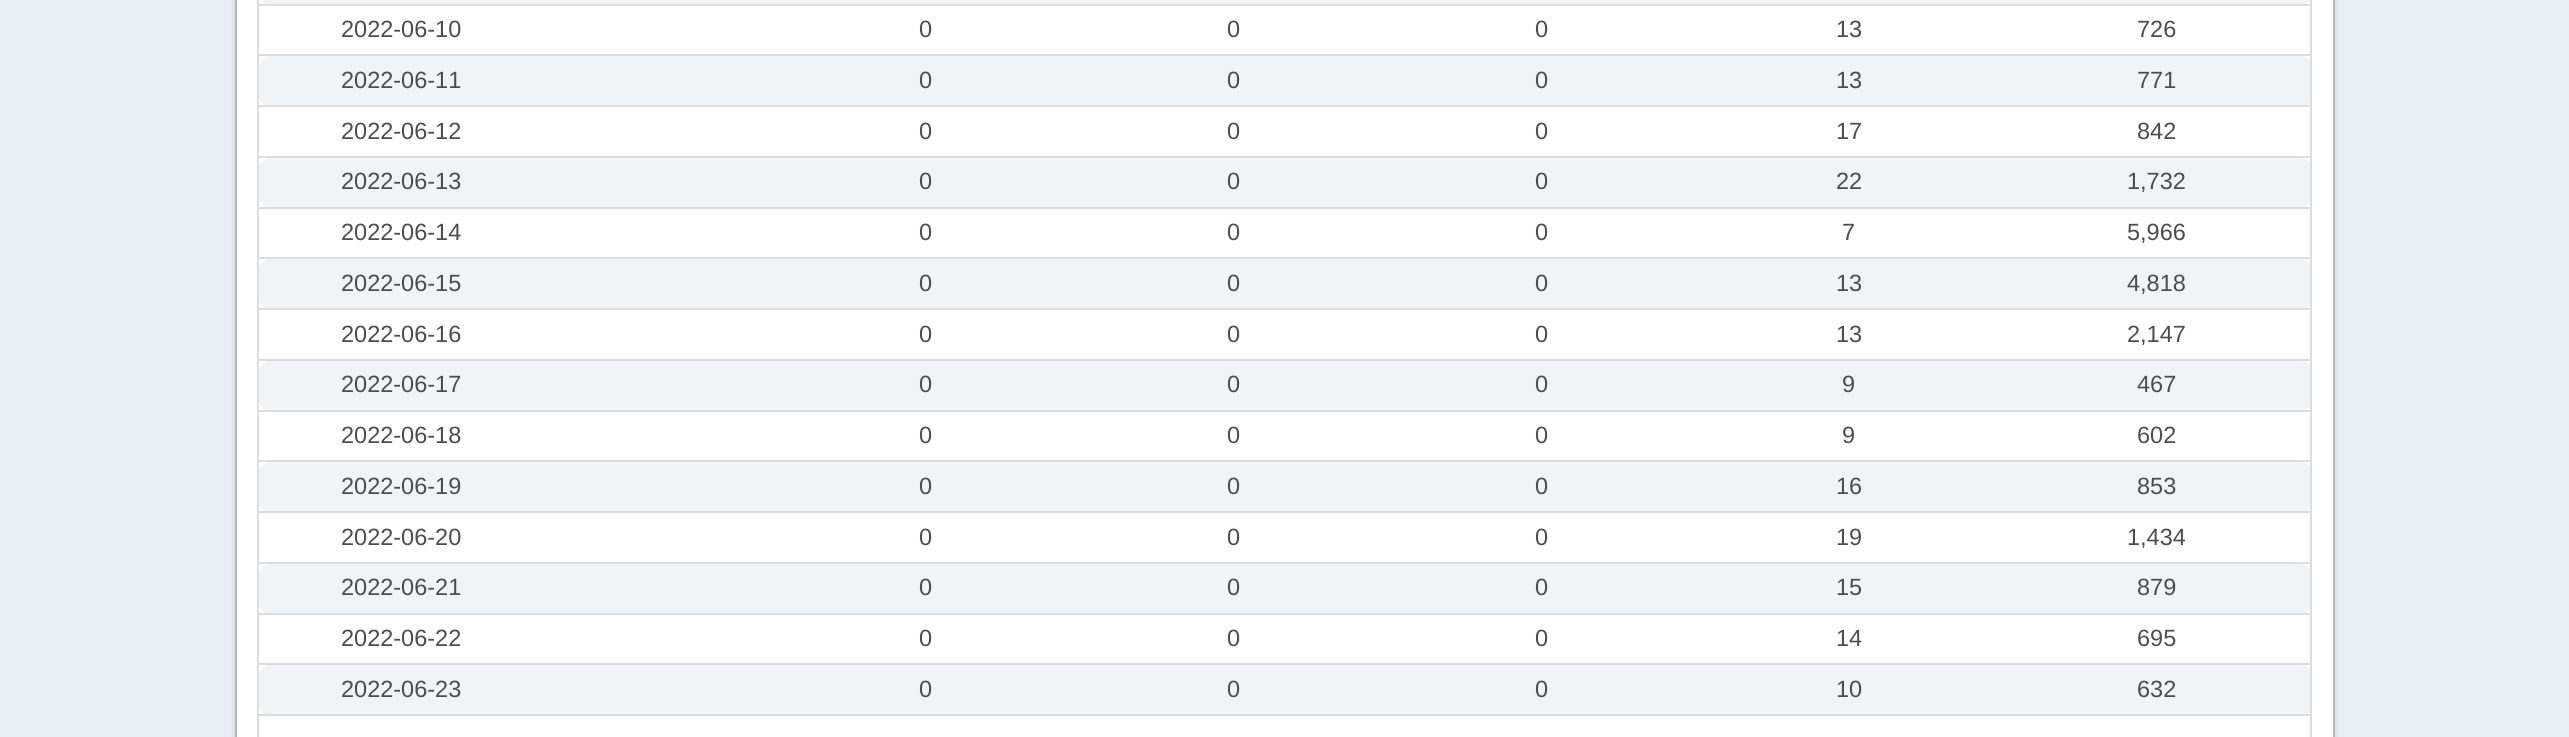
#include <cairo.h>
#include <math.h>
#include <stddef.h>

static cairo_t *ctx;

static void use_color(int r, int g, int b) {
    cairo_set_source_rgb(ctx, r / 255.0, g / 255.0, b / 255.0);
}

static void round_rect(double x, double y, double w, double h, double r) {
    cairo_new_sub_path(ctx);
    cairo_arc(ctx, x + w - r, y + h - r, r, 0, M_PI / 2);
    cairo_arc(ctx, x + r, y + h - r, r, M_PI / 2, M_PI);
    cairo_arc(ctx, x + r, y + r, r, M_PI, 1.5 * M_PI);
    cairo_arc(ctx, x + w - r, y + r, r, 1.5 * M_PI, 2 * M_PI);
    cairo_close_path(ctx);
}

static void shadow(double x, double y, double w, double h, double r, double blur, double alpha) {
    cairo_push_group_with_content(ctx, CAIRO_CONTENT_ALPHA);
    cairo_set_operator(ctx, CAIRO_OPERATOR_SOURCE);
    for (int i = 15; i >= -15 && fmin(w, h) + blur * i / 3 > 0; i -= 2) {
        double e = blur * i / 6;
        cairo_set_source_rgba(ctx, 0, 0, 0, alpha * erfc((i - 1) / 8.5) / 2);
        round_rect(x - e, y - e, w + 2 * e, h + 2 * e, fmax(0, fmin(r + e + blur * .6, fmin(w, h) / 2 + e)));
        cairo_fill(ctx);
    }
    cairo_pattern_t *soft = cairo_pop_group(ctx);
    cairo_mask(ctx, soft);
    cairo_pattern_destroy(soft);
}

int main(void) {
    cairo_surface_t *surface = cairo_image_surface_create(CAIRO_FORMAT_RGB24, 2569, 737);
    ctx = cairo_create(surface);
    cairo_font_options_t *options = cairo_font_options_create();
    cairo_font_options_set_hint_metrics(options, CAIRO_HINT_METRICS_OFF);
    cairo_font_options_set_hint_style(options, CAIRO_HINT_STYLE_NONE);
    cairo_set_font_options(ctx, options);
    cairo_set_miter_limit(ctx, 4);
    use_color(233, 238, 242);
    cairo_paint(ctx);
    use_color(0, 0, 0);
    shadow(235, -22, 2100, 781, 14, 2.5, 0.14);
    use_color(255, 255, 255);
    cairo_rectangle(ctx, 236, -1, 2098, 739);
    cairo_fill_preserve(ctx);
    use_color(184, 184, 184);
    cairo_stroke(ctx);
    use_color(240, 244, 247);
    round_rect(259, -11, 2053, 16, 11);
    cairo_fill(ctx);
    use_color(221, 221, 221);
    cairo_rectangle(ctx, 257, 4, 2055, 2);
    cairo_fill(ctx);
    cairo_rectangle(ctx, 257, 54, 2055, 2);
    cairo_fill(ctx);
    use_color(240, 244, 247);
    round_rect(259, 56, 2053, 51, 11);
    cairo_fill(ctx);
    use_color(221, 221, 221);
    cairo_rectangle(ctx, 257, 105, 2055, 2);
    cairo_fill(ctx);
    cairo_rectangle(ctx, 257, 156, 2055, 2);
    cairo_fill(ctx);
    use_color(240, 244, 247);
    round_rect(259, 158, 2053, 50, 11);
    cairo_fill(ctx);
    use_color(221, 221, 221);
    cairo_rectangle(ctx, 257, 207, 2055, 2);
    cairo_fill(ctx);
    cairo_rectangle(ctx, 257, 257, 2055, 2);
    cairo_fill(ctx);
    use_color(240, 244, 247);
    round_rect(259, 259, 2053, 51, 11);
    cairo_fill(ctx);
    use_color(221, 221, 221);
    cairo_rectangle(ctx, 257, 308, 2055, 2);
    cairo_fill(ctx);
    cairo_rectangle(ctx, 257, 359, 2055, 2);
    cairo_fill(ctx);
    use_color(240, 244, 247);
    round_rect(259, 361, 2053, 50, 11);
    cairo_fill(ctx);
    use_color(221, 221, 221);
    cairo_rectangle(ctx, 257, 410, 2055, 2);
    cairo_fill(ctx);
    cairo_rectangle(ctx, 257, 460, 2055, 2);
    cairo_fill(ctx);
    use_color(240, 244, 247);
    round_rect(259, 462, 2053, 51, 11);
    cairo_fill(ctx);
    use_color(221, 221, 221);
    cairo_rectangle(ctx, 257, 511, 2055, 2);
    cairo_fill(ctx);
    cairo_rectangle(ctx, 257, 562, 2055, 2);
    cairo_fill(ctx);
    use_color(240, 244, 247);
    round_rect(259, 564, 2053, 50, 11);
    cairo_fill(ctx);
    use_color(221, 221, 221);
    cairo_rectangle(ctx, 257, 613, 2055, 2);
    cairo_fill(ctx);
    cairo_rectangle(ctx, 257, 663, 2055, 2);
    cairo_fill(ctx);
    use_color(240, 244, 247);
    round_rect(259, 665, 2053, 51, 11);
    cairo_fill(ctx);
    use_color(221, 221, 221);
    cairo_rectangle(ctx, 257, 714, 2055, 2);
    cairo_fill(ctx);
    cairo_rectangle(ctx, 2310, 714, 2, 23);
    cairo_fill(ctx);
    cairo_rectangle(ctx, 2310, 663, 2, 53);
    cairo_fill(ctx);
    cairo_rectangle(ctx, 2310, 613, 2, 52);
    cairo_fill(ctx);
    cairo_rectangle(ctx, 2310, 562, 2, 52);
    cairo_fill(ctx);
    cairo_rectangle(ctx, 2310, 511, 2, 53);
    cairo_fill(ctx);
    cairo_rectangle(ctx, 2310, 460, 2, 53);
    cairo_fill(ctx);
    cairo_rectangle(ctx, 2310, 410, 2, 52);
    cairo_fill(ctx);
    cairo_rectangle(ctx, 2310, 359, 2, 52);
    cairo_fill(ctx);
    cairo_rectangle(ctx, 2310, 308, 2, 53);
    cairo_fill(ctx);
    cairo_rectangle(ctx, 2310, 257, 2, 53);
    cairo_fill(ctx);
    cairo_rectangle(ctx, 2310, 207, 2, 52);
    cairo_fill(ctx);
    cairo_rectangle(ctx, 2310, 156, 2, 52);
    cairo_fill(ctx);
    cairo_rectangle(ctx, 2310, 105, 2, 53);
    cairo_fill(ctx);
    cairo_rectangle(ctx, 2310, 54, 2, 53);
    cairo_fill(ctx);
    cairo_rectangle(ctx, 2310, 0, 2, 56);
    cairo_fill(ctx);
    cairo_rectangle(ctx, 257, 714, 2, 23);
    cairo_fill(ctx);
    cairo_rectangle(ctx, 257, 663, 2, 53);
    cairo_fill(ctx);
    cairo_rectangle(ctx, 257, 613, 2, 52);
    cairo_fill(ctx);
    cairo_rectangle(ctx, 257, 562, 2, 52);
    cairo_fill(ctx);
    cairo_rectangle(ctx, 257, 511, 2, 53);
    cairo_fill(ctx);
    cairo_rectangle(ctx, 257, 460, 2, 53);
    cairo_fill(ctx);
    cairo_rectangle(ctx, 257, 410, 2, 52);
    cairo_fill(ctx);
    cairo_rectangle(ctx, 257, 359, 2, 52);
    cairo_fill(ctx);
    cairo_rectangle(ctx, 257, 308, 2, 53);
    cairo_fill(ctx);
    cairo_rectangle(ctx, 257, 257, 2, 53);
    cairo_fill(ctx);
    cairo_rectangle(ctx, 257, 207, 2, 52);
    cairo_fill(ctx);
    cairo_rectangle(ctx, 257, 156, 2, 52);
    cairo_fill(ctx);
    cairo_rectangle(ctx, 257, 105, 2, 53);
    cairo_fill(ctx);
    cairo_rectangle(ctx, 257, 54, 2, 53);
    cairo_fill(ctx);
    cairo_rectangle(ctx, 257, 0, 2, 56);
    cairo_fill(ctx);
    cairo_select_font_face(ctx, "Liberation Sans", CAIRO_FONT_SLANT_NORMAL, CAIRO_FONT_WEIGHT_NORMAL);
    cairo_set_font_size(ctx, 23.5);
    use_color(77, 77, 77);
    cairo_move_to(ctx, 341, 37);
    cairo_show_text(ctx, "2022-06-10");
    cairo_move_to(ctx, 919, 37);
    cairo_show_text(ctx, "0");
    cairo_move_to(ctx, 1227, 37);
    cairo_show_text(ctx, "0");
    cairo_move_to(ctx, 1535, 37);
    cairo_show_text(ctx, "0");
    cairo_move_to(ctx, 1836, 37);
    cairo_show_text(ctx, "13");
    cairo_move_to(ctx, 2137, 37);
    cairo_show_text(ctx, "726");
    cairo_move_to(ctx, 341, 88);
    cairo_show_text(ctx, "2022-06-11");
    cairo_move_to(ctx, 919, 88);
    cairo_show_text(ctx, "0");
    cairo_move_to(ctx, 1227, 88);
    cairo_show_text(ctx, "0");
    cairo_move_to(ctx, 1535, 88);
    cairo_show_text(ctx, "0");
    cairo_move_to(ctx, 1836, 88);
    cairo_show_text(ctx, "13");
    cairo_move_to(ctx, 2137, 88);
    cairo_show_text(ctx, "771");
    cairo_move_to(ctx, 341, 139);
    cairo_show_text(ctx, "2022-06-12");
    cairo_move_to(ctx, 919, 139);
    cairo_show_text(ctx, "0");
    cairo_move_to(ctx, 1227, 139);
    cairo_show_text(ctx, "0");
    cairo_move_to(ctx, 1535, 139);
    cairo_show_text(ctx, "0");
    cairo_move_to(ctx, 1836, 139);
    cairo_show_text(ctx, "17");
    cairo_move_to(ctx, 2137, 139);
    cairo_show_text(ctx, "842");
    cairo_move_to(ctx, 341, 189);
    cairo_show_text(ctx, "2022-06-13");
    cairo_move_to(ctx, 919, 189);
    cairo_show_text(ctx, "0");
    cairo_move_to(ctx, 1227, 189);
    cairo_show_text(ctx, "0");
    cairo_move_to(ctx, 1535, 189);
    cairo_show_text(ctx, "0");
    cairo_move_to(ctx, 1836, 189);
    cairo_show_text(ctx, "22");
    cairo_move_to(ctx, 2127, 189);
    cairo_show_text(ctx, "1,732");
    cairo_move_to(ctx, 341, 240);
    cairo_show_text(ctx, "2022-06-14");
    cairo_move_to(ctx, 919, 240);
    cairo_show_text(ctx, "0");
    cairo_move_to(ctx, 1227, 240);
    cairo_show_text(ctx, "0");
    cairo_move_to(ctx, 1535, 240);
    cairo_show_text(ctx, "0");
    cairo_move_to(ctx, 1842, 240);
    cairo_show_text(ctx, "7");
    cairo_move_to(ctx, 2127, 240);
    cairo_show_text(ctx, "5,966");
    cairo_move_to(ctx, 341, 291);
    cairo_show_text(ctx, "2022-06-15");
    cairo_move_to(ctx, 919, 291);
    cairo_show_text(ctx, "0");
    cairo_move_to(ctx, 1227, 291);
    cairo_show_text(ctx, "0");
    cairo_move_to(ctx, 1535, 291);
    cairo_show_text(ctx, "0");
    cairo_move_to(ctx, 1836, 291);
    cairo_show_text(ctx, "13");
    cairo_move_to(ctx, 2127, 291);
    cairo_show_text(ctx, "4,818");
    cairo_move_to(ctx, 341, 342);
    cairo_show_text(ctx, "2022-06-16");
    cairo_move_to(ctx, 919, 342);
    cairo_show_text(ctx, "0");
    cairo_move_to(ctx, 1227, 342);
    cairo_show_text(ctx, "0");
    cairo_move_to(ctx, 1535, 342);
    cairo_show_text(ctx, "0");
    cairo_move_to(ctx, 1836, 342);
    cairo_show_text(ctx, "13");
    cairo_move_to(ctx, 2127, 342);
    cairo_show_text(ctx, "2,147");
    cairo_move_to(ctx, 341, 392);
    cairo_show_text(ctx, "2022-06-17");
    cairo_move_to(ctx, 919, 392);
    cairo_show_text(ctx, "0");
    cairo_move_to(ctx, 1227, 392);
    cairo_show_text(ctx, "0");
    cairo_move_to(ctx, 1535, 392);
    cairo_show_text(ctx, "0");
    cairo_move_to(ctx, 1842, 392);
    cairo_show_text(ctx, "9");
    cairo_move_to(ctx, 2137, 392);
    cairo_show_text(ctx, "467");
    cairo_move_to(ctx, 341, 443);
    cairo_show_text(ctx, "2022-06-18");
    cairo_move_to(ctx, 919, 443);
    cairo_show_text(ctx, "0");
    cairo_move_to(ctx, 1227, 443);
    cairo_show_text(ctx, "0");
    cairo_move_to(ctx, 1535, 443);
    cairo_show_text(ctx, "0");
    cairo_move_to(ctx, 1842, 443);
    cairo_show_text(ctx, "9");
    cairo_move_to(ctx, 2137, 443);
    cairo_show_text(ctx, "602");
    cairo_move_to(ctx, 341, 494);
    cairo_show_text(ctx, "2022-06-19");
    cairo_move_to(ctx, 919, 494);
    cairo_show_text(ctx, "0");
    cairo_move_to(ctx, 1227, 494);
    cairo_show_text(ctx, "0");
    cairo_move_to(ctx, 1535, 494);
    cairo_show_text(ctx, "0");
    cairo_move_to(ctx, 1836, 494);
    cairo_show_text(ctx, "16");
    cairo_move_to(ctx, 2137, 494);
    cairo_show_text(ctx, "853");
    cairo_move_to(ctx, 341, 545);
    cairo_show_text(ctx, "2022-06-20");
    cairo_move_to(ctx, 919, 545);
    cairo_show_text(ctx, "0");
    cairo_move_to(ctx, 1227, 545);
    cairo_show_text(ctx, "0");
    cairo_move_to(ctx, 1535, 545);
    cairo_show_text(ctx, "0");
    cairo_move_to(ctx, 1836, 545);
    cairo_show_text(ctx, "19");
    cairo_move_to(ctx, 2127, 545);
    cairo_show_text(ctx, "1,434");
    cairo_move_to(ctx, 341, 595);
    cairo_show_text(ctx, "2022-06-21");
    cairo_move_to(ctx, 919, 595);
    cairo_show_text(ctx, "0");
    cairo_move_to(ctx, 1227, 595);
    cairo_show_text(ctx, "0");
    cairo_move_to(ctx, 1535, 595);
    cairo_show_text(ctx, "0");
    cairo_move_to(ctx, 1836, 595);
    cairo_show_text(ctx, "15");
    cairo_move_to(ctx, 2137, 595);
    cairo_show_text(ctx, "879");
    cairo_move_to(ctx, 341, 646);
    cairo_show_text(ctx, "2022-06-22");
    cairo_move_to(ctx, 919, 646);
    cairo_show_text(ctx, "0");
    cairo_move_to(ctx, 1227, 646);
    cairo_show_text(ctx, "0");
    cairo_move_to(ctx, 1535, 646);
    cairo_show_text(ctx, "0");
    cairo_move_to(ctx, 1836, 646);
    cairo_show_text(ctx, "14");
    cairo_move_to(ctx, 2137, 646);
    cairo_show_text(ctx, "695");
    cairo_move_to(ctx, 341, 697);
    cairo_show_text(ctx, "2022-06-23");
    cairo_move_to(ctx, 919, 697);
    cairo_show_text(ctx, "0");
    cairo_move_to(ctx, 1227, 697);
    cairo_show_text(ctx, "0");
    cairo_move_to(ctx, 1535, 697);
    cairo_show_text(ctx, "0");
    cairo_move_to(ctx, 1836, 697);
    cairo_show_text(ctx, "10");
    cairo_move_to(ctx, 2137, 697);
    cairo_show_text(ctx, "632");
    cairo_surface_write_to_png(surface, "result.png");
    cairo_font_options_destroy(options);
    cairo_destroy(ctx);
    cairo_surface_destroy(surface);
    return 0;
}
